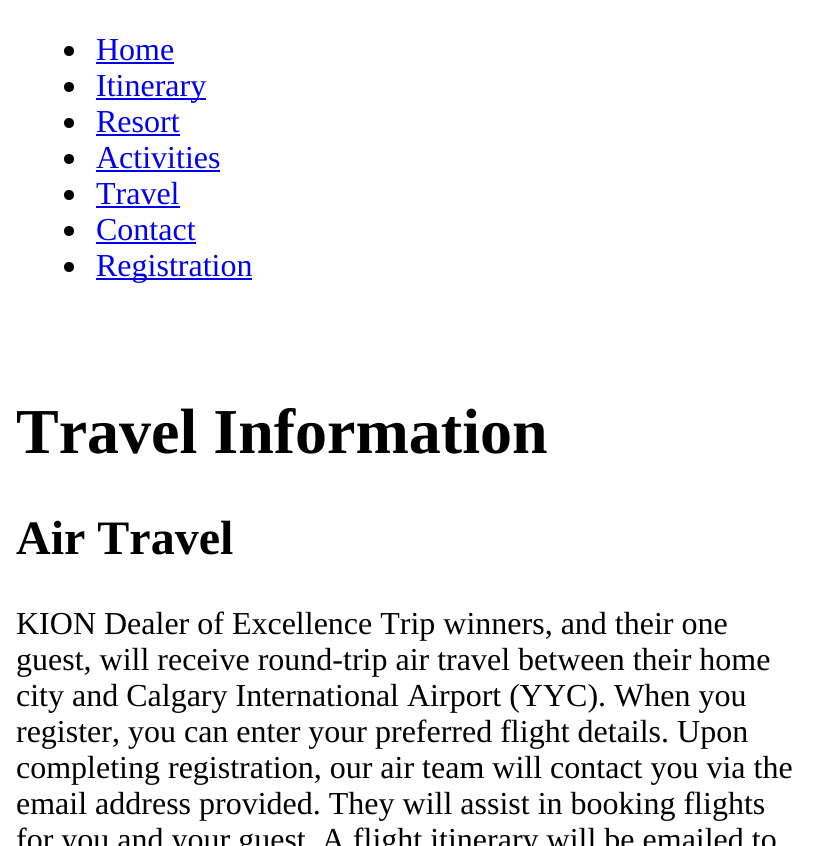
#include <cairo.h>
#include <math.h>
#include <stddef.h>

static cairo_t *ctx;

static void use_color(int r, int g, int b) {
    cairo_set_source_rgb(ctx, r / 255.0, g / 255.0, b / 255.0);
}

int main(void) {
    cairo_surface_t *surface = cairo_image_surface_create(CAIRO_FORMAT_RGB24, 823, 846);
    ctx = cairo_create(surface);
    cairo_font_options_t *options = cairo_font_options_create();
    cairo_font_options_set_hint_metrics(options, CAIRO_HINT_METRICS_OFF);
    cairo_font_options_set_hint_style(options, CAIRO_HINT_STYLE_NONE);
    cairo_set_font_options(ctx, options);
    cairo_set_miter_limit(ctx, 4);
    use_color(255, 255, 255);
    cairo_paint(ctx);
    use_color(0, 0, 0);
    cairo_arc(ctx, 69, 51, 5, 0, 2 * M_PI);
    cairo_fill(ctx);
    cairo_select_font_face(ctx, "Liberation Serif", CAIRO_FONT_SLANT_NORMAL, CAIRO_FONT_WEIGHT_NORMAL);
    cairo_set_font_size(ctx, 32);
    use_color(0, 0, 238);
    cairo_move_to(ctx, 96, 60);
    cairo_show_text(ctx, "Home");
    cairo_rectangle(ctx, 96, 62, 78, 2);
    cairo_fill(ctx);
    use_color(0, 0, 0);
    cairo_arc(ctx, 69, 87, 5, 0, 2 * M_PI);
    cairo_fill(ctx);
    use_color(0, 0, 238);
    cairo_rectangle(ctx, 96, 98, 110, 2);
    cairo_fill(ctx);
    cairo_move_to(ctx, 96, 96);
    cairo_show_text(ctx, "Itinerary");
    use_color(0, 0, 0);
    cairo_new_path(ctx);
    cairo_arc(ctx, 69, 123, 5, 0, 2 * M_PI);
    cairo_fill(ctx);
    use_color(0, 0, 238);
    cairo_move_to(ctx, 96, 132);
    cairo_show_text(ctx, "Resort");
    cairo_rectangle(ctx, 96, 134, 84, 2);
    cairo_fill(ctx);
    use_color(0, 0, 0);
    cairo_arc(ctx, 69, 159, 5, 0, 2 * M_PI);
    cairo_fill(ctx);
    use_color(0, 0, 238);
    cairo_move_to(ctx, 96, 168);
    cairo_show_text(ctx, "Activities");
    cairo_rectangle(ctx, 96, 170, 124, 2);
    cairo_fill(ctx);
    use_color(0, 0, 0);
    cairo_arc(ctx, 69, 195, 5, 0, 2 * M_PI);
    cairo_fill(ctx);
    use_color(0, 0, 238);
    cairo_move_to(ctx, 96, 204);
    cairo_show_text(ctx, "Travel");
    cairo_rectangle(ctx, 96, 206, 84, 2);
    cairo_fill(ctx);
    use_color(0, 0, 0);
    cairo_arc(ctx, 69, 231, 5, 0, 2 * M_PI);
    cairo_fill(ctx);
    use_color(0, 0, 238);
    cairo_move_to(ctx, 96, 240);
    cairo_show_text(ctx, "Contact");
    cairo_rectangle(ctx, 96, 242, 100, 2);
    cairo_fill(ctx);
    use_color(0, 0, 0);
    cairo_arc(ctx, 69, 267, 5, 0, 2 * M_PI);
    cairo_fill(ctx);
    use_color(0, 0, 238);
    cairo_rectangle(ctx, 96, 278, 156, 2);
    cairo_fill(ctx);
    cairo_move_to(ctx, 96, 276);
    cairo_show_text(ctx, "Registration");
    cairo_select_font_face(ctx, "Liberation Serif", CAIRO_FONT_SLANT_NORMAL, CAIRO_FONT_WEIGHT_BOLD);
    cairo_set_font_size(ctx, 64);
    use_color(0, 0, 0);
    cairo_move_to(ctx, 16, 453);
    cairo_show_text(ctx, "Travel Information");
    cairo_set_font_size(ctx, 48);
    cairo_move_to(ctx, 16, 554);
    cairo_show_text(ctx, "Air Travel");
    cairo_select_font_face(ctx, "Liberation Serif", CAIRO_FONT_SLANT_NORMAL, CAIRO_FONT_WEIGHT_NORMAL);
    cairo_set_font_size(ctx, 32);
    cairo_move_to(ctx, 16, 634);
    cairo_show_text(ctx, "KION Dealer of Excellence Trip winners, and their one");
    cairo_move_to(ctx, 16, 670);
    cairo_show_text(ctx, "guest, will receive round-trip air travel between their home");
    cairo_move_to(ctx, 16, 706);
    cairo_show_text(ctx, "city and Calgary International Airport (YYC). When you");
    cairo_move_to(ctx, 16, 742);
    cairo_show_text(ctx, "register, you can enter your preferred flight details. Upon");
    cairo_move_to(ctx, 16, 778);
    cairo_show_text(ctx, "completing registration, our air team will contact you via the");
    cairo_move_to(ctx, 16, 814);
    cairo_show_text(ctx, "email address provided. They will assist in booking flights");
    cairo_move_to(ctx, 16, 850);
    cairo_show_text(ctx, "for you and your guest. A flight itinerary will be emailed to");
    cairo_surface_write_to_png(surface, "result.png");
    cairo_font_options_destroy(options);
    cairo_destroy(ctx);
    cairo_surface_destroy(surface);
    return 0;
}
